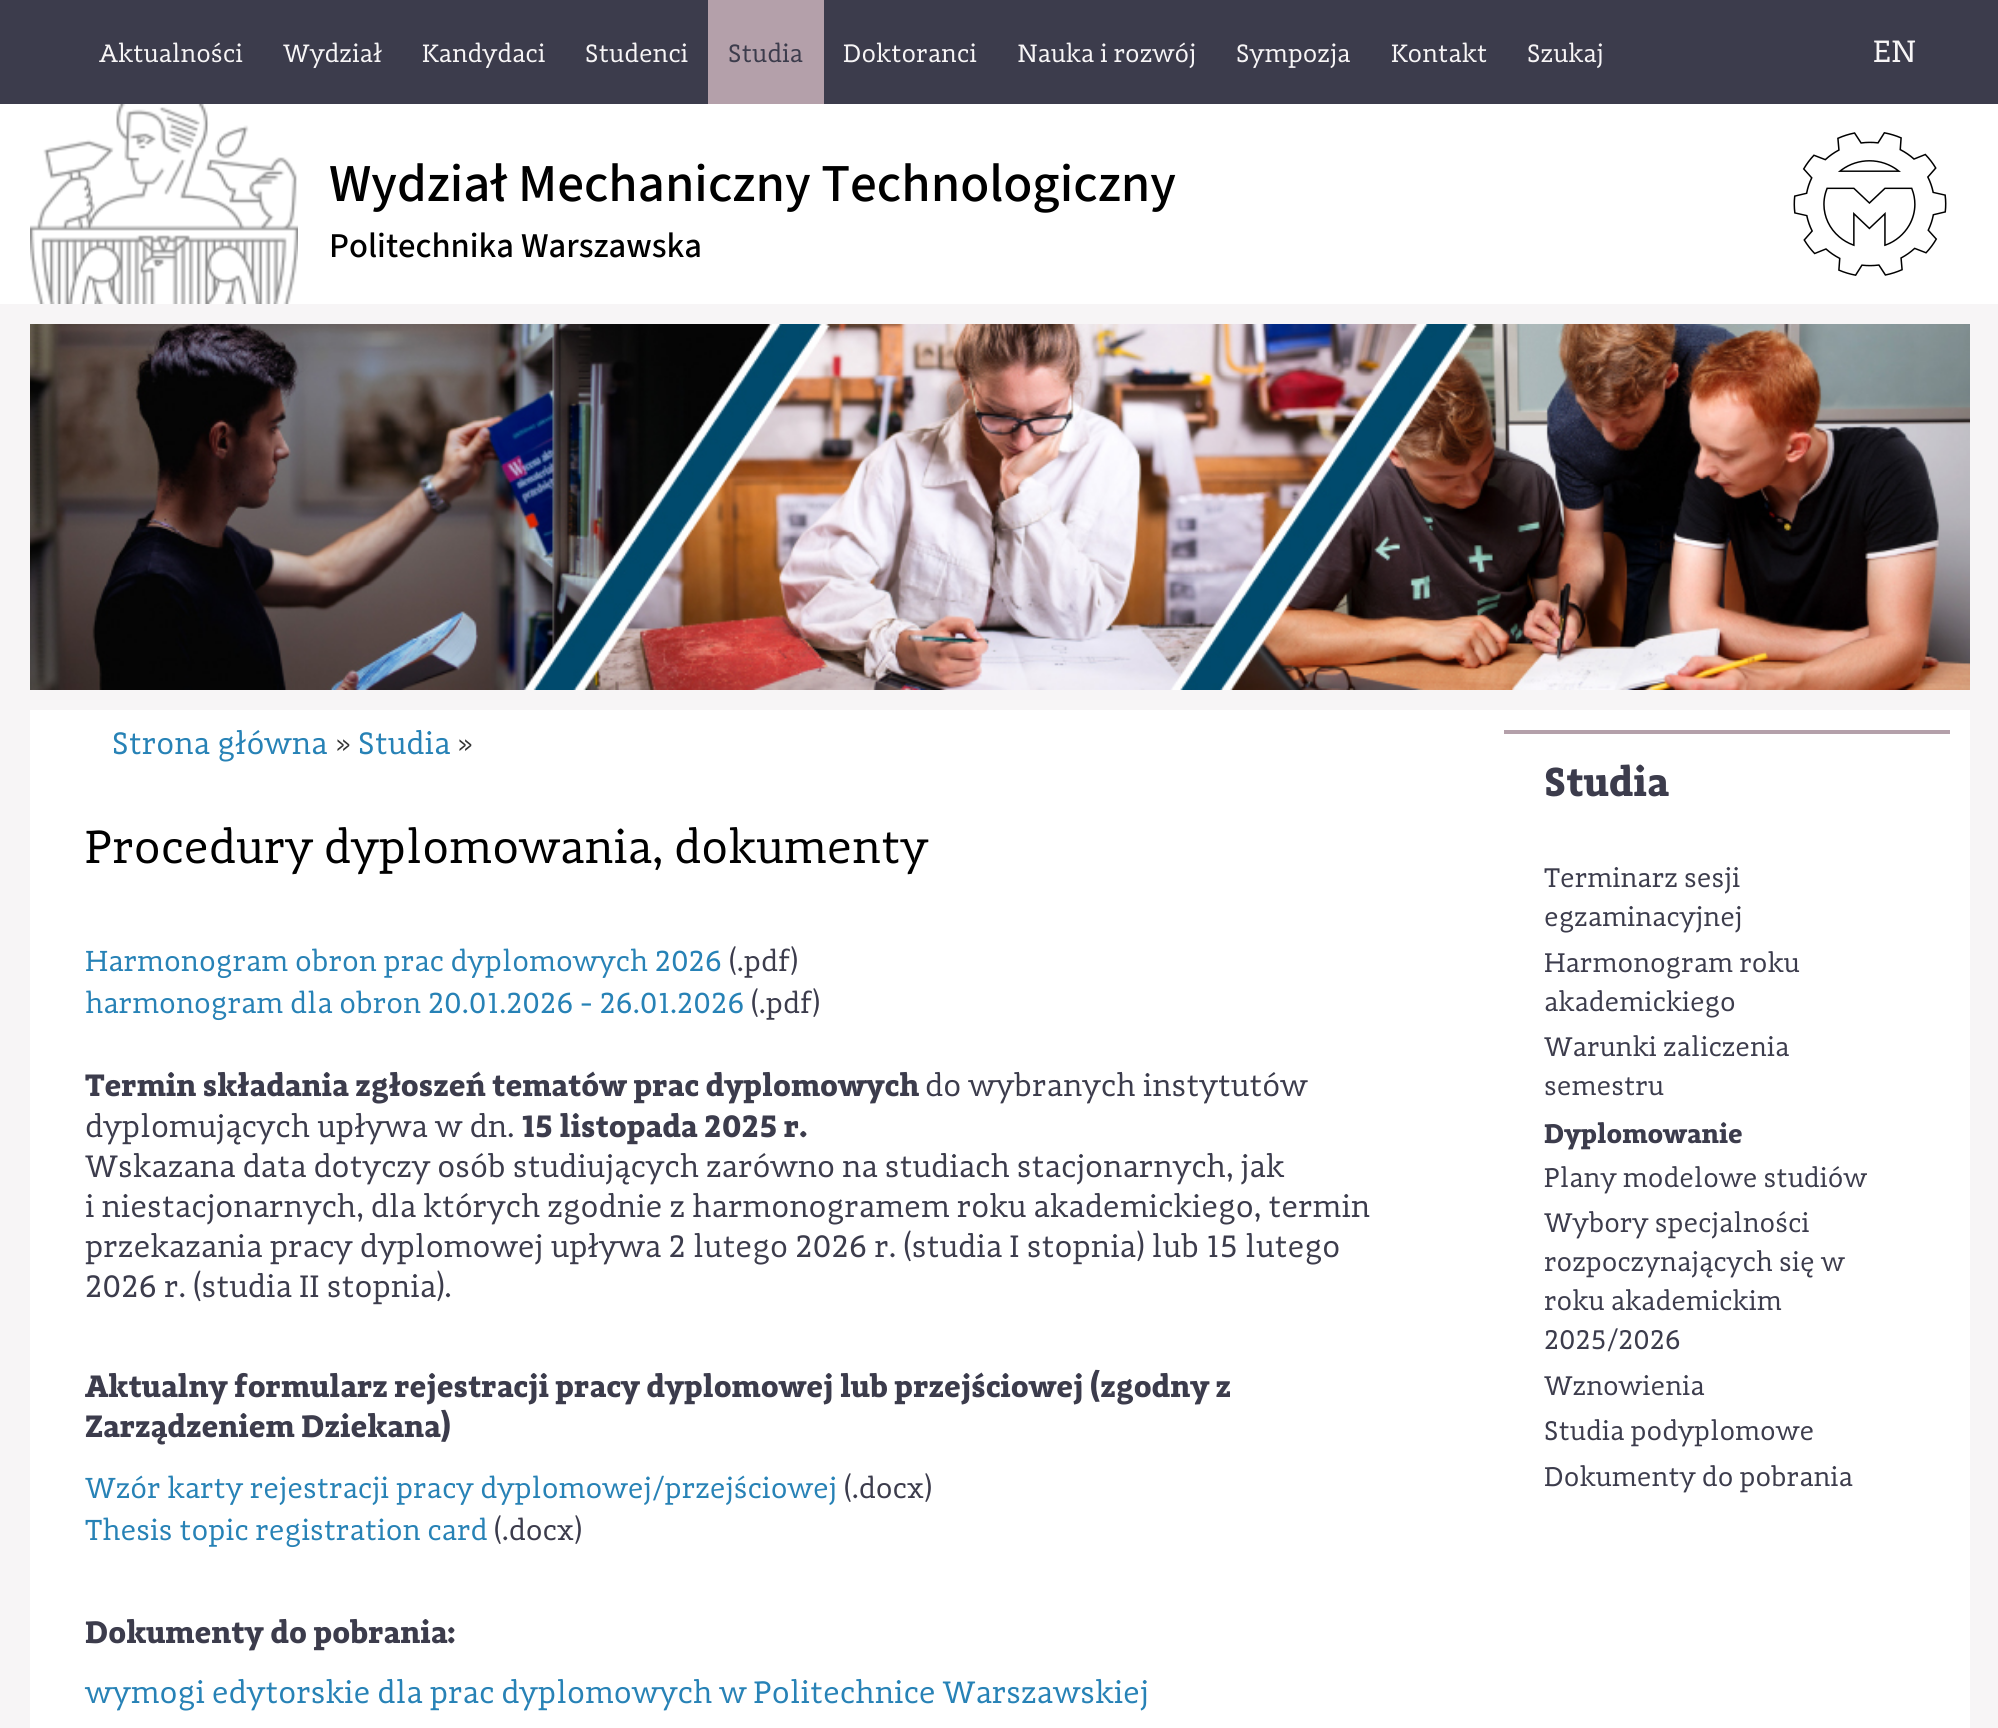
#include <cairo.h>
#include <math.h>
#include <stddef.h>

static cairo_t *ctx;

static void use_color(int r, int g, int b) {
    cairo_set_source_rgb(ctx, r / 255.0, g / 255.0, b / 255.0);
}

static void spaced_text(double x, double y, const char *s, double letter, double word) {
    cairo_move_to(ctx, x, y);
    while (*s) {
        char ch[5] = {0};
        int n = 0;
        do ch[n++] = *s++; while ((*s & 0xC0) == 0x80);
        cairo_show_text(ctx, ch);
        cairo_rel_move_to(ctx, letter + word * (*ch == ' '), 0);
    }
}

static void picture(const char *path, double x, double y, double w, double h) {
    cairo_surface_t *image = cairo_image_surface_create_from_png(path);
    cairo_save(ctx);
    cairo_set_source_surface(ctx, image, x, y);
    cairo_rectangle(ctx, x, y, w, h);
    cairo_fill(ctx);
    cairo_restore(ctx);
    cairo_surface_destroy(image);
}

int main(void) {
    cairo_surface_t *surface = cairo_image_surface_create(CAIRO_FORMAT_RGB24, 1998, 1728);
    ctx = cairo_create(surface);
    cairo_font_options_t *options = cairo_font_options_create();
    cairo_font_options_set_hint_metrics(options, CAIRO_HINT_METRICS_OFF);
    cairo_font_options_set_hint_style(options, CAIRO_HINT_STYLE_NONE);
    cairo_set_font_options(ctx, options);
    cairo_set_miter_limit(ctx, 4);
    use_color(247, 245, 246);
    cairo_paint(ctx);
    use_color(60, 60, 76);
    cairo_rectangle(ctx, 0, 0, 1998, 104);
    cairo_fill(ctx);
    cairo_select_font_face(ctx, "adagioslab", CAIRO_FONT_SLANT_NORMAL, CAIRO_FONT_WEIGHT_NORMAL);
    cairo_set_font_size(ctx, 26);
    use_color(247, 245, 246);
    cairo_move_to(ctx, 99, 62);
    cairo_show_text(ctx, "Aktualności");
    cairo_move_to(ctx, 283, 62);
    cairo_show_text(ctx, "Wydział");
    cairo_move_to(ctx, 422, 62);
    cairo_show_text(ctx, "Kandydaci");
    cairo_move_to(ctx, 585, 62);
    cairo_show_text(ctx, "Studenci");
    use_color(180, 160, 170);
    cairo_rectangle(ctx, 708, 0, 116, 104);
    cairo_fill(ctx);
    use_color(60, 60, 76);
    cairo_move_to(ctx, 728, 62);
    cairo_show_text(ctx, "Studia");
    use_color(247, 245, 246);
    cairo_move_to(ctx, 843, 62);
    cairo_show_text(ctx, "Doktoranci");
    cairo_move_to(ctx, 1017, 62);
    cairo_show_text(ctx, "Nauka i rozwój");
    cairo_move_to(ctx, 1236, 62);
    cairo_show_text(ctx, "Sympozja");
    cairo_move_to(ctx, 1391, 62);
    cairo_show_text(ctx, "Kontakt");
    cairo_move_to(ctx, 1527, 62);
    cairo_show_text(ctx, "Szukaj");
    cairo_set_font_size(ctx, 32);
    cairo_move_to(ctx, 1873, 62);
    cairo_show_text(ctx, "EN");
    use_color(255, 255, 255);
    cairo_rectangle(ctx, 0, 104, 1998, 200);
    cairo_fill(ctx);
    picture("img1.png", 30, 104, 268, 200);
    cairo_select_font_face(ctx, "Source Sans 3 Medium", CAIRO_FONT_SLANT_NORMAL, CAIRO_FONT_WEIGHT_NORMAL);
    cairo_set_font_size(ctx, 53.3);
    use_color(0, 0, 0);
    cairo_move_to(ctx, 329, 201);
    cairo_show_text(ctx, "Wydział Mechaniczny Technologiczny");
    cairo_set_font_size(ctx, 34.75);
    cairo_move_to(ctx, 329, 257);
    cairo_show_text(ctx, "Politechnika Warszawska");
    picture("img2.png", 1793, 132, 154, 144);
    picture("img3.png", 30, 324, 1940, 366);
    use_color(255, 255, 255);
    cairo_rectangle(ctx, 30, 710, 1940, 1018);
    cairo_fill(ctx);
    cairo_select_font_face(ctx, "adagioslab", CAIRO_FONT_SLANT_NORMAL, CAIRO_FONT_WEIGHT_NORMAL);
    cairo_set_font_size(ctx, 32.1);
    use_color(39, 130, 182);
    cairo_move_to(ctx, 112, 754);
    cairo_show_text(ctx, "Strona główna");
    cairo_set_font_size(ctx, 26);
    use_color(51, 51, 51);
    cairo_move_to(ctx, 336, 752);
    cairo_show_text(ctx, "»");
    cairo_set_font_size(ctx, 32.1);
    use_color(39, 130, 182);
    cairo_move_to(ctx, 358, 754);
    cairo_show_text(ctx, "Studia");
    cairo_set_font_size(ctx, 26);
    use_color(51, 51, 51);
    cairo_move_to(ctx, 458, 752);
    cairo_show_text(ctx, "»");
    cairo_set_font_size(ctx, 48);
    use_color(0, 0, 0);
    cairo_move_to(ctx, 85, 863);
    cairo_show_text(ctx, "Procedury dyplomowania, dokumenty");
    cairo_set_font_size(ctx, 30);
    use_color(39, 130, 182);
    cairo_move_to(ctx, 85, 971);
    cairo_show_text(ctx, "Harmonogram obron prac dyplomowych 2026");
    use_color(60, 60, 76);
    cairo_move_to(ctx, 729, 971);
    cairo_show_text(ctx, "(.pdf)");
    use_color(39, 130, 182);
    cairo_move_to(ctx, 85, 1013);
    cairo_show_text(ctx, "harmonogram dla obron 20.01.2026 - 26.01.2026");
    use_color(60, 60, 76);
    cairo_move_to(ctx, 751, 1013);
    cairo_show_text(ctx, "(.pdf)");
    cairo_select_font_face(ctx, "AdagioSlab", CAIRO_FONT_SLANT_NORMAL, CAIRO_FONT_WEIGHT_BOLD);
    cairo_set_font_size(ctx, 32.1);
    cairo_move_to(ctx, 85, 1096);
    cairo_show_text(ctx, "Termin składania zgłoszeń tematów prac dyplomowych");
    cairo_select_font_face(ctx, "adagioslab", CAIRO_FONT_SLANT_NORMAL, CAIRO_FONT_WEIGHT_NORMAL);
    cairo_move_to(ctx, 925, 1096);
    cairo_show_text(ctx, "do wybranych instytutów");
    cairo_move_to(ctx, 85, 1137);
    cairo_show_text(ctx, "dyplomujących upływa w dn.");
    cairo_select_font_face(ctx, "AdagioSlab", CAIRO_FONT_SLANT_NORMAL, CAIRO_FONT_WEIGHT_BOLD);
    cairo_move_to(ctx, 521, 1137);
    cairo_show_text(ctx, "15 listopada 2025 r.");
    cairo_select_font_face(ctx, "adagioslab", CAIRO_FONT_SLANT_NORMAL, CAIRO_FONT_WEIGHT_NORMAL);
    spaced_text(85, 1177, "Wskazana data dotyczy osób studiujących zarówno na studiach stacjonarnych, jak", 0, -0.25);
    spaced_text(85, 1217, "i niestacjonarnych, dla których zgodnie z harmonogramem roku akademickiego, termin", 0, -0.25);
    cairo_move_to(ctx, 85, 1257);
    cairo_show_text(ctx, "przekazania pracy dyplomowej upływa 2 lutego 2026 r. (studia I stopnia) lub 15 lutego");
    cairo_move_to(ctx, 85, 1297);
    cairo_show_text(ctx, "2026 r. (studia II stopnia).");
    cairo_select_font_face(ctx, "AdagioSlab", CAIRO_FONT_SLANT_NORMAL, CAIRO_FONT_WEIGHT_BOLD);
    spaced_text(85, 1397, "Aktualny formularz rejestracji pracy dyplomowej lub przejściowej (zgodny z", 0, -0.25);
    cairo_move_to(ctx, 85, 1437);
    cairo_show_text(ctx, "Zarządzeniem Dziekana)");
    cairo_select_font_face(ctx, "adagioslab", CAIRO_FONT_SLANT_NORMAL, CAIRO_FONT_WEIGHT_NORMAL);
    cairo_set_font_size(ctx, 30);
    use_color(39, 130, 182);
    cairo_move_to(ctx, 85, 1498);
    cairo_show_text(ctx, "Wzór karty rejestracji pracy dyplomowej/przejściowej");
    use_color(60, 60, 76);
    cairo_move_to(ctx, 844, 1498);
    cairo_show_text(ctx, "(.docx)");
    use_color(39, 130, 182);
    cairo_move_to(ctx, 85, 1540);
    cairo_show_text(ctx, "Thesis topic registration card");
    use_color(60, 60, 76);
    cairo_move_to(ctx, 494, 1540);
    cairo_show_text(ctx, "(.docx)");
    cairo_select_font_face(ctx, "AdagioSlab", CAIRO_FONT_SLANT_NORMAL, CAIRO_FONT_WEIGHT_BOLD);
    cairo_set_font_size(ctx, 32.1);
    cairo_move_to(ctx, 85, 1643);
    cairo_show_text(ctx, "Dokumenty do pobrania:");
    cairo_select_font_face(ctx, "adagioslab", CAIRO_FONT_SLANT_NORMAL, CAIRO_FONT_WEIGHT_NORMAL);
    use_color(39, 130, 182);
    spaced_text(85, 1703, "wymogi edytorskie dla prac dyplomowych w Politechnice Warszawskiej", 0, -0.25);
    use_color(180, 160, 170);
    cairo_rectangle(ctx, 1504, 730, 446, 4);
    cairo_fill(ctx);
    cairo_select_font_face(ctx, "AdagioSlab", CAIRO_FONT_SLANT_NORMAL, CAIRO_FONT_WEIGHT_BOLD);
    cairo_set_font_size(ctx, 42);
    use_color(60, 60, 76);
    cairo_move_to(ctx, 1544, 796);
    cairo_show_text(ctx, "Studia");
    cairo_select_font_face(ctx, "adagioslab", CAIRO_FONT_SLANT_NORMAL, CAIRO_FONT_WEIGHT_NORMAL);
    cairo_set_font_size(ctx, 27.9);
    cairo_move_to(ctx, 1544, 887);
    cairo_show_text(ctx, "Terminarz sesji");
    cairo_move_to(ctx, 1544, 926);
    cairo_show_text(ctx, "egzaminacyjnej");
    cairo_move_to(ctx, 1544, 972);
    cairo_show_text(ctx, "Harmonogram roku");
    cairo_move_to(ctx, 1544, 1011);
    cairo_show_text(ctx, "akademickiego");
    cairo_move_to(ctx, 1544, 1056);
    cairo_show_text(ctx, "Warunki zaliczenia");
    cairo_move_to(ctx, 1544, 1095);
    cairo_show_text(ctx, "semestru");
    cairo_select_font_face(ctx, "AdagioSlab", CAIRO_FONT_SLANT_NORMAL, CAIRO_FONT_WEIGHT_BOLD);
    cairo_move_to(ctx, 1544, 1143);
    cairo_show_text(ctx, "Dyplomowanie");
    cairo_select_font_face(ctx, "adagioslab", CAIRO_FONT_SLANT_NORMAL, CAIRO_FONT_WEIGHT_NORMAL);
    cairo_move_to(ctx, 1544, 1187);
    cairo_show_text(ctx, "Plany modelowe studiów");
    cairo_move_to(ctx, 1544, 1232);
    cairo_show_text(ctx, "Wybory specjalności");
    cairo_move_to(ctx, 1544, 1271);
    cairo_show_text(ctx, "rozpoczynających się w");
    cairo_move_to(ctx, 1544, 1310);
    cairo_show_text(ctx, "roku akademickim");
    cairo_move_to(ctx, 1544, 1349);
    cairo_show_text(ctx, "2025/2026");
    cairo_move_to(ctx, 1544, 1395);
    cairo_show_text(ctx, "Wznowienia");
    cairo_move_to(ctx, 1544, 1440);
    cairo_show_text(ctx, "Studia podyplomowe");
    cairo_move_to(ctx, 1544, 1486);
    cairo_show_text(ctx, "Dokumenty do pobrania");
    cairo_surface_write_to_png(surface, "result.png");
    cairo_font_options_destroy(options);
    cairo_destroy(ctx);
    cairo_surface_destroy(surface);
    return 0;
}
